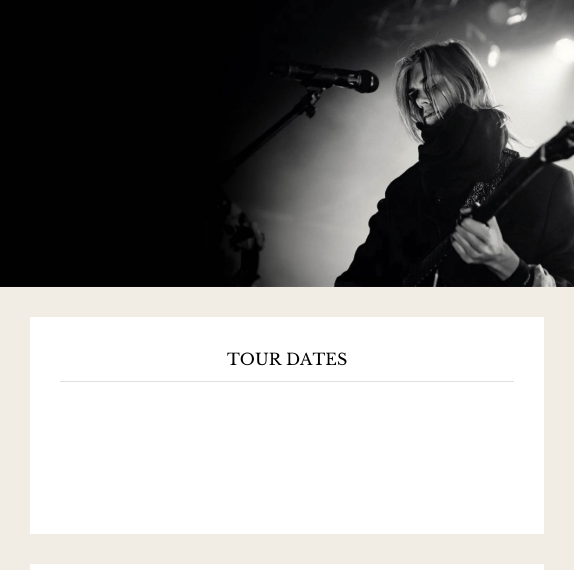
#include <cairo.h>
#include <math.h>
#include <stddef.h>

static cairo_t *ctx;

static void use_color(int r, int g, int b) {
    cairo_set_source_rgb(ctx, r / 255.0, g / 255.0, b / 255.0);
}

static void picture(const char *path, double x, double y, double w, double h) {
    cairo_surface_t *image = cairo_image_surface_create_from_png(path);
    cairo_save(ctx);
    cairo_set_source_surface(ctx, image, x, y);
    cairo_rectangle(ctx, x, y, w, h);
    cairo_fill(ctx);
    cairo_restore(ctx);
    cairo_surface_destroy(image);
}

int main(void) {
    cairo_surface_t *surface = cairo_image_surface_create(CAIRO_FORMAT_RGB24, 574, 570);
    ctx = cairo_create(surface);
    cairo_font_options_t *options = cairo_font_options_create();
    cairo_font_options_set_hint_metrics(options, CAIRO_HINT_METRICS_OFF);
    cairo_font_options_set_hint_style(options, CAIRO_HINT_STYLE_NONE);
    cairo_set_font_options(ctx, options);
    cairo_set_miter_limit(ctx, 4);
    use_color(241, 236, 228);
    cairo_paint(ctx);
    picture("img1.png", 0, 0, 574, 287);
    use_color(255, 255, 255);
    cairo_rectangle(ctx, 30, 317, 514, 217);
    cairo_fill(ctx);
    use_color(224, 222, 222);
    cairo_rectangle(ctx, 60, 381, 454, 1);
    cairo_fill(ctx);
    cairo_select_font_face(ctx, "Libre Baskerville", CAIRO_FONT_SLANT_NORMAL, CAIRO_FONT_WEIGHT_NORMAL);
    cairo_set_font_size(ctx, 16);
    use_color(0, 0, 0);
    cairo_move_to(ctx, 227, 365);
    cairo_show_text(ctx, "TOUR DATES");
    use_color(255, 255, 255);
    cairo_rectangle(ctx, 30, 564, 514, 6);
    cairo_fill(ctx);
    cairo_surface_write_to_png(surface, "result.png");
    cairo_font_options_destroy(options);
    cairo_destroy(ctx);
    cairo_surface_destroy(surface);
    return 0;
}
